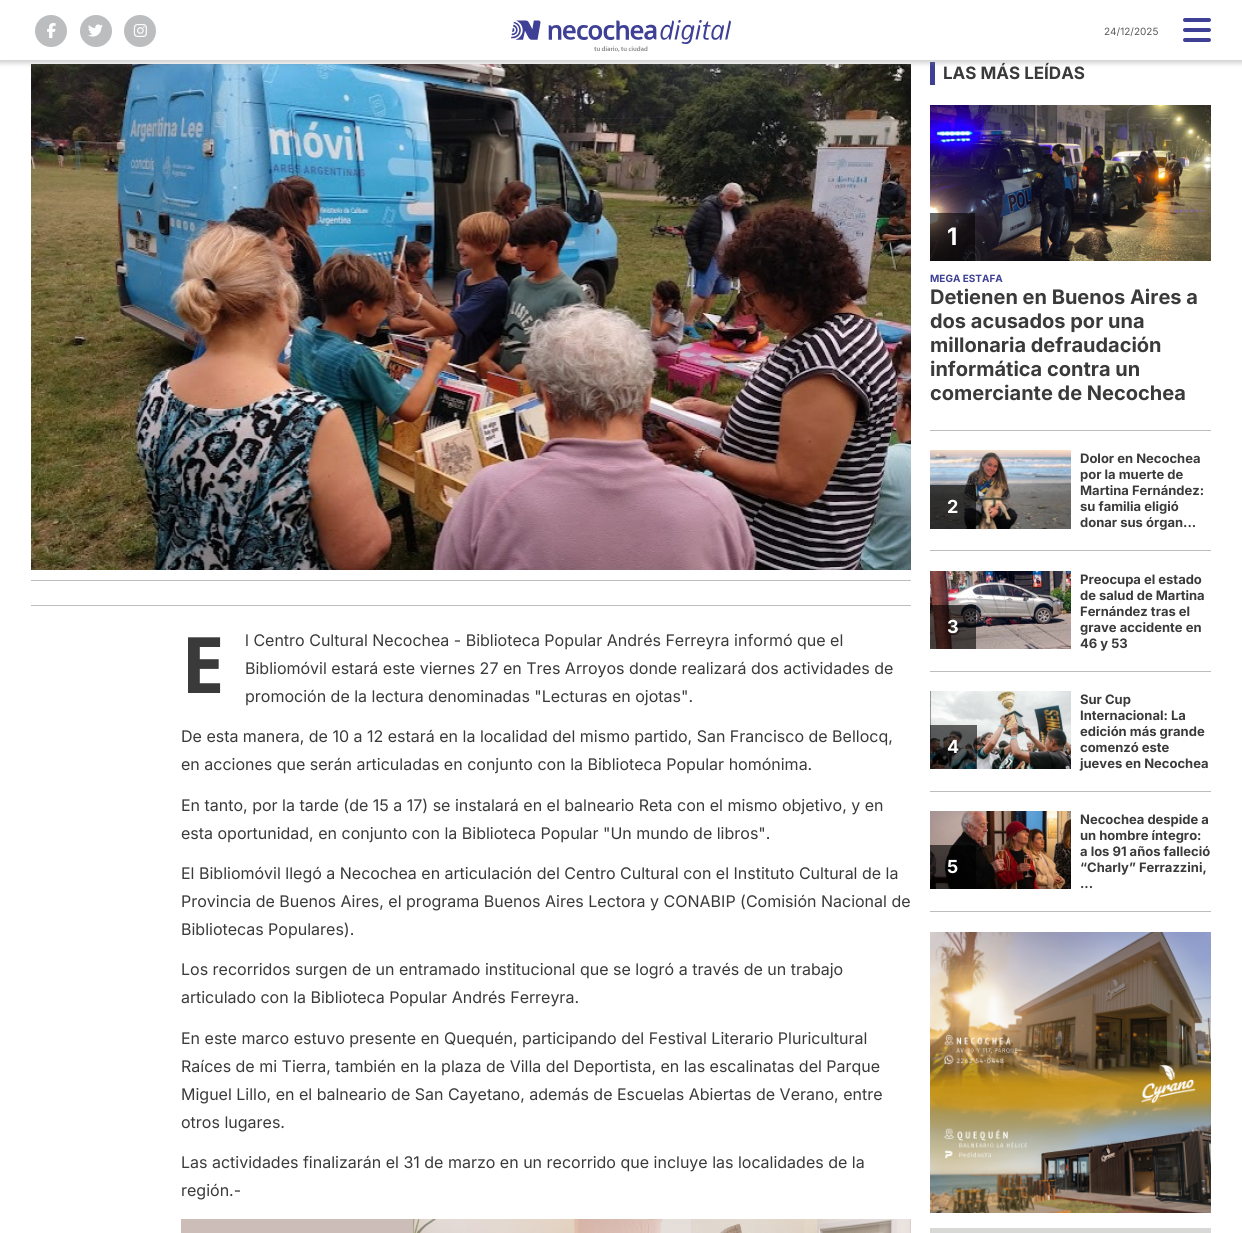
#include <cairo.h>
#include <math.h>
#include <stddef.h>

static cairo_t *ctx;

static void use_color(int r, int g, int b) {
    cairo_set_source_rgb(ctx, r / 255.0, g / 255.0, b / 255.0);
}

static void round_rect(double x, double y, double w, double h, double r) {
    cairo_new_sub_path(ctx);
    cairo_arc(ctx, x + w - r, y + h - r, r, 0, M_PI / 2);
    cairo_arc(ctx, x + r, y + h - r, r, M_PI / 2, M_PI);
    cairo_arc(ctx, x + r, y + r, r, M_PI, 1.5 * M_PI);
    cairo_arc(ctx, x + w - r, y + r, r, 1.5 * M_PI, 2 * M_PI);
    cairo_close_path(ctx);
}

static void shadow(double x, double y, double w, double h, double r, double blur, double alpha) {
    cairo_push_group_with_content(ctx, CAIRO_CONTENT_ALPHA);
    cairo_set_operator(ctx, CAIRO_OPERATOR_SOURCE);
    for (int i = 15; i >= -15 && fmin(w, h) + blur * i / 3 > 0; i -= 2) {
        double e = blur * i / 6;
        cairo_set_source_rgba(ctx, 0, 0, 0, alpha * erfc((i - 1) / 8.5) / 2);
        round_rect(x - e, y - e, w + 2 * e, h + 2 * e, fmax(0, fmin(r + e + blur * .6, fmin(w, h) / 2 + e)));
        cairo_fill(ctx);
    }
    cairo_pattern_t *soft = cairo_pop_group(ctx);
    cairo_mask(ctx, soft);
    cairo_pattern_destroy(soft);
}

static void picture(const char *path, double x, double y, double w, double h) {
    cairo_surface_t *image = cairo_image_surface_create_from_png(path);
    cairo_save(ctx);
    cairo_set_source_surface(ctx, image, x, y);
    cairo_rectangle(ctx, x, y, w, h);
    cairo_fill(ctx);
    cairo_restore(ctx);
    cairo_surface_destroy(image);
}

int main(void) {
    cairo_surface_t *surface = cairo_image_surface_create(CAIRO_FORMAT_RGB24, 1242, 1233);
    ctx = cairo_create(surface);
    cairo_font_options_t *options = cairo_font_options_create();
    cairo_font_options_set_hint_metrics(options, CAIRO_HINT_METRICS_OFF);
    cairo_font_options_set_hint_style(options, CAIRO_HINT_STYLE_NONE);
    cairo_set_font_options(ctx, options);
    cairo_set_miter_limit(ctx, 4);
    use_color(255, 255, 255);
    cairo_paint(ctx);
    picture("img7.png", 31, 64, 880, 506);
    use_color(62, 64, 149);
    cairo_rectangle(ctx, 930, 62, 5, 23);
    cairo_fill(ctx);
    use_color(132, 132, 132);
    shadow(-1, -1, 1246, 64, 0, 2.5, 0.4);
    use_color(255, 255, 255);
    cairo_rectangle(ctx, 0, 0, 1242, 60);
    cairo_fill(ctx);
    picture("img1.png", 35, 15, 32, 32);
    picture("img2.png", 47, 23, 9, 15);
    picture("img1.png", 80, 15, 32, 32);
    picture("img3.png", 88, 24, 15, 13);
    picture("img1.png", 124, 15, 32, 32);
    picture("img4.png", 133, 24, 14, 13);
    picture("img5.png", 511, 20, 220, 32);
    cairo_select_font_face(ctx, "Inter", CAIRO_FONT_SLANT_NORMAL, CAIRO_FONT_WEIGHT_NORMAL);
    cairo_set_font_size(ctx, 10);
    use_color(88, 89, 91);
    cairo_move_to(ctx, 1104, 35);
    cairo_show_text(ctx, "24/12/2025");
    picture("img6.png", 1183, 18, 28, 24);
    use_color(187, 189, 191);
    cairo_rectangle(ctx, 31, 580, 880, 1);
    cairo_fill(ctx);
    cairo_rectangle(ctx, 31, 605, 880, 1);
    cairo_fill(ctx);
    cairo_select_font_face(ctx, "Noto Sans", CAIRO_FONT_SLANT_NORMAL, CAIRO_FONT_WEIGHT_BOLD);
    cairo_set_font_size(ctx, 78);
    use_color(58, 58, 58);
    cairo_move_to(ctx, 181, 693);
    cairo_show_text(ctx, "E");
    cairo_select_font_face(ctx, "Inter", CAIRO_FONT_SLANT_NORMAL, CAIRO_FONT_WEIGHT_NORMAL);
    cairo_set_font_size(ctx, 16);
    cairo_move_to(ctx, 245, 646);
    cairo_show_text(ctx, "l Centro Cultural Necochea - Biblioteca Popular Andrés Ferreyra informó que el");
    cairo_move_to(ctx, 245, 674);
    cairo_show_text(ctx, "Bibliomóvil estará este viernes 27 en Tres Arroyos donde realizará dos actividades de");
    cairo_move_to(ctx, 245, 702);
    cairo_show_text(ctx, "promoción de la lectura denominadas \"Lecturas en ojotas\".");
    cairo_move_to(ctx, 181, 742);
    cairo_show_text(ctx, "De esta manera, de 10 a 12 estará en la localidad del mismo partido, San Francisco de Bellocq,");
    cairo_move_to(ctx, 181, 770);
    cairo_show_text(ctx, "en acciones que serán articuladas en conjunto con la Biblioteca Popular homónima.");
    cairo_move_to(ctx, 181, 811);
    cairo_show_text(ctx, "En tanto, por la tarde (de 15 a 17) se instalará en el balneario Reta con el mismo objetivo, y en");
    cairo_move_to(ctx, 181, 839);
    cairo_show_text(ctx, "esta oportunidad, en conjunto con la Biblioteca Popular \"Un mundo de libros\".");
    cairo_move_to(ctx, 181, 879);
    cairo_show_text(ctx, "El Bibliomóvil llegó a Necochea en articulación del Centro Cultural con el Instituto Cultural de la");
    cairo_move_to(ctx, 181, 907);
    cairo_show_text(ctx, "Provincia de Buenos Aires, el programa Buenos Aires Lectora y CONABIP (Comisión Nacional de");
    cairo_move_to(ctx, 181, 935);
    cairo_show_text(ctx, "Bibliotecas Populares).");
    cairo_move_to(ctx, 181, 975);
    cairo_show_text(ctx, "Los recorridos surgen de un entramado institucional que se logró a través de un trabajo");
    cairo_move_to(ctx, 181, 1003);
    cairo_show_text(ctx, "articulado con la Biblioteca Popular Andrés Ferreyra.");
    cairo_move_to(ctx, 181, 1044);
    cairo_show_text(ctx, "En este marco estuvo presente en Quequén, participando del Festival Literario Pluricultural");
    cairo_move_to(ctx, 181, 1072);
    cairo_show_text(ctx, "Raíces de mi Tierra, también en la plaza de Villa del Deportista, en las escalinatas del Parque");
    cairo_move_to(ctx, 181, 1100);
    cairo_show_text(ctx, "Miguel Lillo, en el balneario de San Cayetano, además de Escuelas Abiertas de Verano, entre");
    cairo_move_to(ctx, 181, 1128);
    cairo_show_text(ctx, "otros lugares.");
    cairo_move_to(ctx, 181, 1168);
    cairo_show_text(ctx, "Las actividades finalizarán el 31 de marzo en un recorrido que incluye las localidades de la");
    cairo_move_to(ctx, 181, 1196);
    cairo_show_text(ctx, "región.-");
    picture("img8.png", 181, 1219, 730, 14);
    cairo_select_font_face(ctx, "Inter", CAIRO_FONT_SLANT_NORMAL, CAIRO_FONT_WEIGHT_BOLD);
    cairo_set_font_size(ctx, 17);
    cairo_move_to(ctx, 943, 79);
    cairo_show_text(ctx, "LAS MÁS LEÍDAS");
    use_color(187, 189, 191);
    cairo_rectangle(ctx, 930, 430, 281, 1);
    cairo_fill(ctx);
    picture("img9.png", 930, 105, 281, 156);
    cairo_set_source_rgba(ctx, 0, 0, 0, 0.6);
    cairo_rectangle(ctx, 930, 213, 45, 48);
    cairo_fill(ctx);
    cairo_set_font_size(ctx, 24);
    use_color(255, 255, 255);
    cairo_move_to(ctx, 947, 245);
    cairo_show_text(ctx, "1");
    cairo_set_font_size(ctx, 10);
    use_color(62, 64, 149);
    cairo_move_to(ctx, 930, 282);
    cairo_show_text(ctx, "MEGA ESTAFA");
    cairo_set_font_size(ctx, 20);
    use_color(58, 58, 58);
    cairo_move_to(ctx, 930, 304);
    cairo_show_text(ctx, "Detienen en Buenos Aires a");
    cairo_move_to(ctx, 930, 328);
    cairo_show_text(ctx, "dos acusados por una");
    cairo_move_to(ctx, 930, 352);
    cairo_show_text(ctx, "millonaria defraudación");
    cairo_move_to(ctx, 930, 376);
    cairo_show_text(ctx, "informática contra un");
    cairo_move_to(ctx, 930, 400);
    cairo_show_text(ctx, "comerciante de Necochea");
    use_color(187, 189, 191);
    cairo_rectangle(ctx, 930, 550, 281, 1);
    cairo_fill(ctx);
    picture("img10.png", 930, 450, 141, 79);
    cairo_set_source_rgba(ctx, 0, 0, 0, 0.6);
    cairo_rectangle(ctx, 930, 485, 46, 44);
    cairo_fill(ctx);
    cairo_set_font_size(ctx, 18);
    use_color(255, 255, 255);
    cairo_move_to(ctx, 947, 513);
    cairo_show_text(ctx, "2");
    cairo_set_font_size(ctx, 13);
    use_color(58, 58, 58);
    cairo_move_to(ctx, 1080, 463);
    cairo_show_text(ctx, "Dolor en Necochea");
    cairo_move_to(ctx, 1080, 479);
    cairo_show_text(ctx, "por la muerte de");
    cairo_move_to(ctx, 1080, 495);
    cairo_show_text(ctx, "Martina Fernández:");
    cairo_move_to(ctx, 1080, 511);
    cairo_show_text(ctx, "su familia eligió");
    cairo_move_to(ctx, 1080, 527);
    cairo_show_text(ctx, "donar sus órgan...");
    use_color(187, 189, 191);
    cairo_rectangle(ctx, 930, 671, 281, 1);
    cairo_fill(ctx);
    picture("img11.png", 930, 571, 141, 78);
    cairo_set_source_rgba(ctx, 0, 0, 0, 0.6);
    cairo_rectangle(ctx, 930, 605, 46, 44);
    cairo_fill(ctx);
    cairo_set_font_size(ctx, 18);
    use_color(255, 255, 255);
    cairo_move_to(ctx, 947, 633);
    cairo_show_text(ctx, "3");
    cairo_set_font_size(ctx, 13);
    use_color(58, 58, 58);
    cairo_move_to(ctx, 1080, 584);
    cairo_show_text(ctx, "Preocupa el estado");
    cairo_move_to(ctx, 1080, 600);
    cairo_show_text(ctx, "de salud de Martina");
    cairo_move_to(ctx, 1080, 616);
    cairo_show_text(ctx, "Fernández tras el");
    cairo_move_to(ctx, 1080, 632);
    cairo_show_text(ctx, "grave accidente en");
    cairo_move_to(ctx, 1080, 648);
    cairo_show_text(ctx, "46 y 53");
    use_color(187, 189, 191);
    cairo_rectangle(ctx, 930, 791, 281, 1);
    cairo_fill(ctx);
    picture("img12.png", 930, 691, 141, 78);
    cairo_set_source_rgba(ctx, 0, 0, 0, 0.6);
    cairo_rectangle(ctx, 930, 725, 47, 44);
    cairo_fill(ctx);
    cairo_set_font_size(ctx, 18);
    use_color(255, 255, 255);
    cairo_move_to(ctx, 947, 753);
    cairo_show_text(ctx, "4");
    cairo_set_font_size(ctx, 13);
    use_color(58, 58, 58);
    cairo_move_to(ctx, 1080, 704);
    cairo_show_text(ctx, "Sur Cup");
    cairo_move_to(ctx, 1080, 720);
    cairo_show_text(ctx, "Internacional: La");
    cairo_move_to(ctx, 1080, 736);
    cairo_show_text(ctx, "edición más grande");
    cairo_move_to(ctx, 1080, 752);
    cairo_show_text(ctx, "comenzó este");
    cairo_move_to(ctx, 1080, 768);
    cairo_show_text(ctx, "jueves en Necochea");
    use_color(187, 189, 191);
    cairo_rectangle(ctx, 930, 911, 281, 1);
    cairo_fill(ctx);
    picture("img13.png", 930, 811, 141, 78);
    cairo_set_source_rgba(ctx, 0, 0, 0, 0.6);
    cairo_rectangle(ctx, 930, 845, 46, 44);
    cairo_fill(ctx);
    cairo_set_font_size(ctx, 18);
    use_color(255, 255, 255);
    cairo_move_to(ctx, 947, 873);
    cairo_show_text(ctx, "5");
    cairo_set_font_size(ctx, 13);
    use_color(58, 58, 58);
    cairo_move_to(ctx, 1080, 824);
    cairo_show_text(ctx, "Necochea despide a");
    cairo_move_to(ctx, 1080, 840);
    cairo_show_text(ctx, "un hombre íntegro:");
    cairo_move_to(ctx, 1080, 856);
    cairo_show_text(ctx, "a los 91 años falleció");
    cairo_move_to(ctx, 1080, 872);
    cairo_show_text(ctx, "“Charly” Ferrazzini,");
    cairo_move_to(ctx, 1080, 888);
    cairo_show_text(ctx, "...");
    picture("img14.png", 930, 932, 281, 281);
    use_color(216, 216, 215);
    cairo_rectangle(ctx, 930, 1228, 281, 5);
    cairo_fill(ctx);
    cairo_surface_write_to_png(surface, "result.png");
    cairo_font_options_destroy(options);
    cairo_destroy(ctx);
    cairo_surface_destroy(surface);
    return 0;
}
